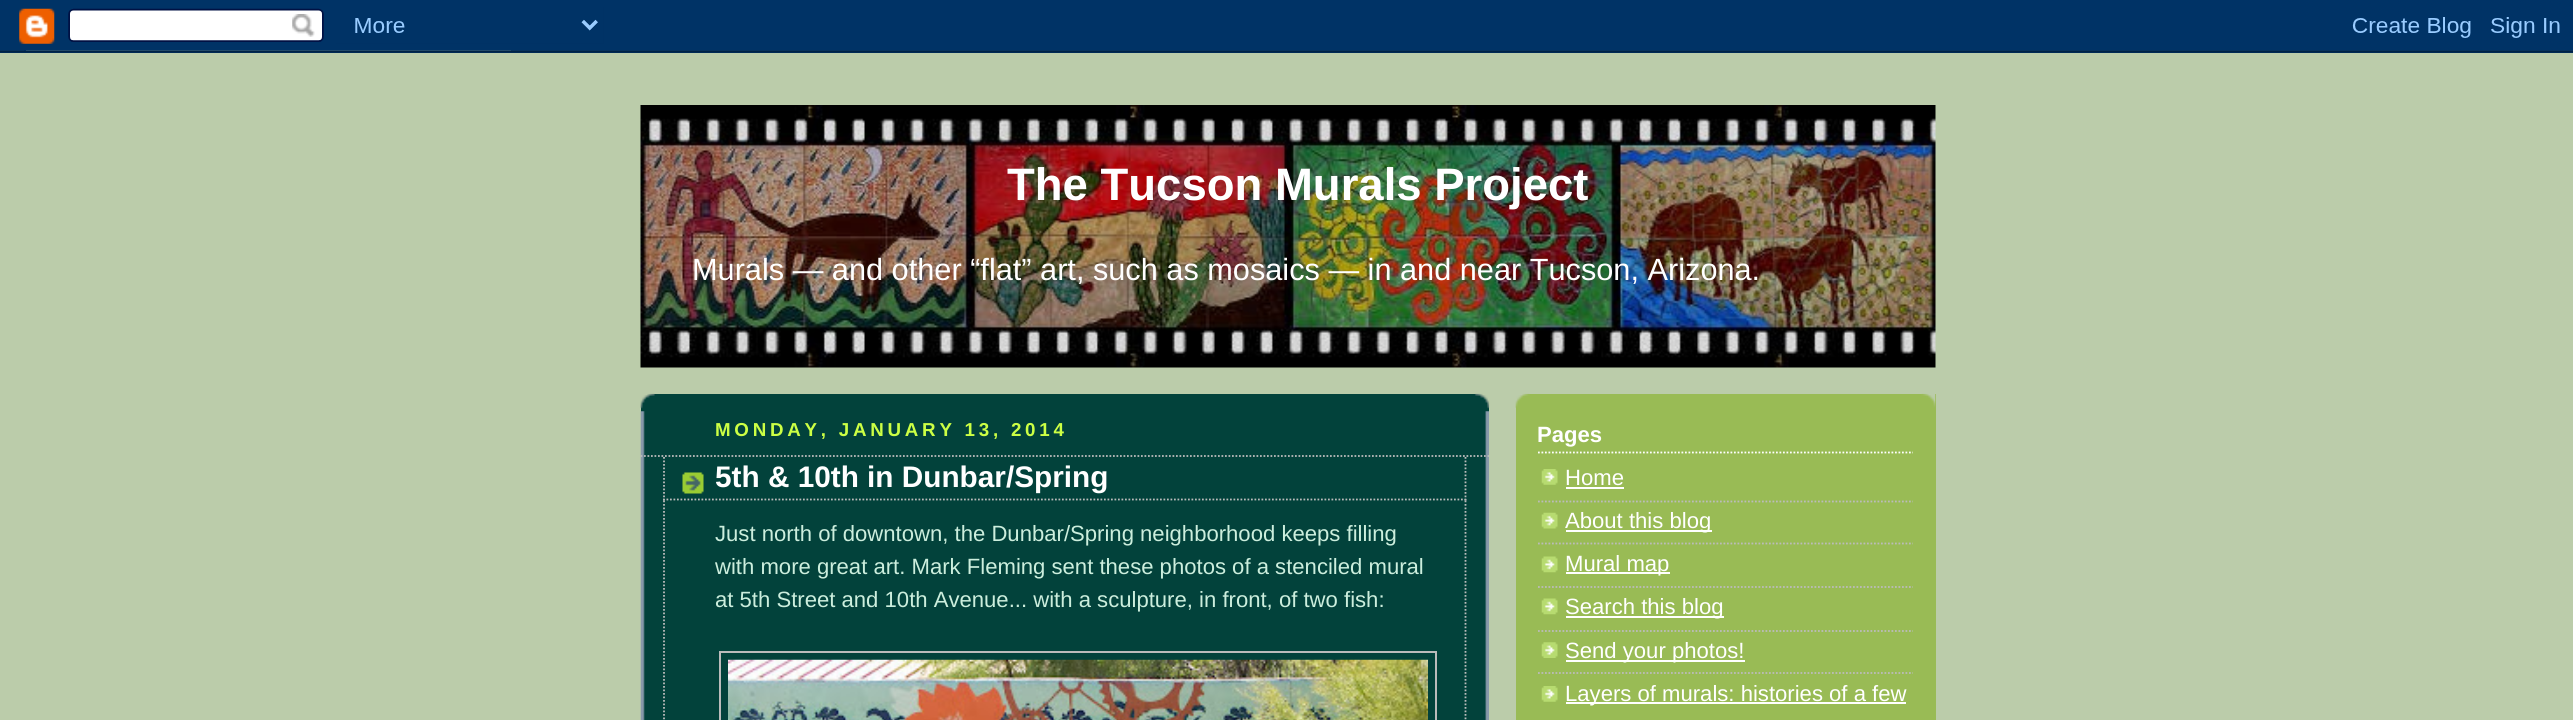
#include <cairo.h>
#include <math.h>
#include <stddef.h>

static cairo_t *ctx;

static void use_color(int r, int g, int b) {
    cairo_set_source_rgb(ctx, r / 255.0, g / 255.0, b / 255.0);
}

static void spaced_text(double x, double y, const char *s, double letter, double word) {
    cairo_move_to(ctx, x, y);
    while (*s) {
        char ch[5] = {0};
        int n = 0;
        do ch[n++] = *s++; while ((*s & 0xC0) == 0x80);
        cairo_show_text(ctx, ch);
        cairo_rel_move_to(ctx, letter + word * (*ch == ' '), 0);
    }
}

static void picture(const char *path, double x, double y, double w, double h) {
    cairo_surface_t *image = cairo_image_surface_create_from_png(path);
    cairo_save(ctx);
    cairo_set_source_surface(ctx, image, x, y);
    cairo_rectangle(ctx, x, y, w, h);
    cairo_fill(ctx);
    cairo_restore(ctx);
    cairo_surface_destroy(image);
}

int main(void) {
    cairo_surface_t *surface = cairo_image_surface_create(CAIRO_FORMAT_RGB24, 2573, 720);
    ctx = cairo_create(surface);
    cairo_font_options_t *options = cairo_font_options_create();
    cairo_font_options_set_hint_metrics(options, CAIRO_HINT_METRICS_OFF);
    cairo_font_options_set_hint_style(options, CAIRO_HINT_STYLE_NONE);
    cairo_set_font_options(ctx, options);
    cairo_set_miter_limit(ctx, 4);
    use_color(187, 204, 170);
    cairo_paint(ctx);
    picture("img1.png", 0, 0, 2573, 53);
    picture("img2.png", 640, 105, 1296, 263);
    cairo_select_font_face(ctx, "Liberation Sans", CAIRO_FONT_SLANT_NORMAL, CAIRO_FONT_WEIGHT_BOLD);
    cairo_set_font_size(ctx, 45.5);
    use_color(255, 255, 255);
    cairo_move_to(ctx, 1007, 200);
    cairo_show_text(ctx, "The Tucson Murals Project");
    cairo_select_font_face(ctx, "Liberation Sans", CAIRO_FONT_SLANT_NORMAL, CAIRO_FONT_WEIGHT_NORMAL);
    cairo_set_font_size(ctx, 30.7);
    cairo_move_to(ctx, 692, 280);
    cairo_show_text(ctx, "Murals — and other “flat” art, such as mosaics — in and near Tucson, Arizona.");
    use_color(2, 66, 59);
    cairo_rectangle(ctx, 641, 394, 848, 326);
    cairo_fill(ctx);
    picture("img3.png", 640, 393, 850, 16);
    picture("img4.png", 640, 411, 849, 309);
    cairo_select_font_face(ctx, "Liberation Sans", CAIRO_FONT_SLANT_NORMAL, CAIRO_FONT_WEIGHT_BOLD);
    cairo_set_font_size(ctx, 18.75);
    use_color(204, 255, 68);
    spaced_text(715, 436, "MONDAY, JANUARY 13, 2014", 3.75, 0);
    cairo_new_path(ctx);
    cairo_move_to(ctx, 640.5, 456);
    cairo_line_to(ctx, 1489, 456);
    use_color(187, 187, 187);
    cairo_set_line_width(ctx, 1.8);
    cairo_set_dash(ctx, (double[]){1.75, 1.75}, 2, 0);
    cairo_stroke(ctx);
    picture("img5.png", 682, 472, 22, 22);
    cairo_new_path(ctx);
    cairo_move_to(ctx, 1465.5, 457);
    cairo_line_to(ctx, 1465.5, 500.5);
    cairo_stroke(ctx);
    cairo_new_path(ctx);
    cairo_move_to(ctx, 663, 499.5);
    cairo_line_to(ctx, 1466.5, 499.5);
    cairo_stroke(ctx);
    cairo_new_path(ctx);
    cairo_move_to(ctx, 664, 457);
    cairo_line_to(ctx, 664, 500.5);
    cairo_stroke(ctx);
    cairo_set_font_size(ctx, 29.75);
    use_color(255, 255, 255);
    cairo_move_to(ctx, 715, 487);
    cairo_show_text(ctx, "5th & 10th in Dunbar/Spring");
    cairo_new_path(ctx);
    cairo_move_to(ctx, 1465.5, 500.5);
    cairo_line_to(ctx, 1465.5, 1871);
    use_color(187, 187, 187);
    cairo_stroke(ctx);
    cairo_new_path(ctx);
    cairo_move_to(ctx, 664, 500.5);
    cairo_line_to(ctx, 664, 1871);
    cairo_stroke(ctx);
    cairo_select_font_face(ctx, "Liberation Sans", CAIRO_FONT_SLANT_NORMAL, CAIRO_FONT_WEIGHT_NORMAL);
    cairo_set_font_size(ctx, 22.1);
    use_color(204, 238, 221);
    cairo_move_to(ctx, 715, 541);
    cairo_show_text(ctx, "Just north of downtown, the Dunbar/Spring neighborhood keeps filling");
    cairo_move_to(ctx, 715, 574);
    cairo_show_text(ctx, "with more great art. Mark Fleming sent these photos of a stenciled mural");
    cairo_move_to(ctx, 715, 607);
    cairo_show_text(ctx, "at 5th Street and 10th Avenue... with a sculpture, in front, of two fish:");
    cairo_rectangle(ctx, 720, 652, 716, 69);
    use_color(187, 187, 187);
    cairo_set_line_width(ctx, 2);
    cairo_set_dash(ctx, NULL, 0, 0);
    cairo_stroke(ctx);
    picture("img6.png", 728, 659, 700, 61);
    use_color(153, 187, 85);
    cairo_rectangle(ctx, 1516, 394, 420, 326);
    cairo_fill(ctx);
    picture("img7.png", 1515, 393, 421, 15);
    cairo_new_path(ctx);
    cairo_move_to(ctx, 1538, 452.5);
    cairo_line_to(ctx, 1913, 452.5);
    use_color(255, 255, 255);
    cairo_set_line_width(ctx, 1.8);
    cairo_set_dash(ctx, (double[]){1.75, 1.75}, 2, 0);
    cairo_stroke(ctx);
    cairo_select_font_face(ctx, "Liberation Sans", CAIRO_FONT_SLANT_NORMAL, CAIRO_FONT_WEIGHT_BOLD);
    cairo_move_to(ctx, 1537, 442);
    cairo_show_text(ctx, "Pages");
    picture("img8.png", 1541, 469, 17, 16);
    cairo_new_path(ctx);
    cairo_move_to(ctx, 1538, 501.5);
    cairo_line_to(ctx, 1913, 501.5);
    use_color(187, 187, 187);
    cairo_stroke(ctx);
    cairo_select_font_face(ctx, "Liberation Sans", CAIRO_FONT_SLANT_NORMAL, CAIRO_FONT_WEIGHT_NORMAL);
    use_color(255, 255, 255);
    cairo_move_to(ctx, 1565, 485);
    cairo_show_text(ctx, "Home");
    cairo_rectangle(ctx, 1566, 487, 58, 2);
    cairo_fill(ctx);
    picture("img9.png", 1541, 512, 17, 17);
    cairo_new_path(ctx);
    cairo_move_to(ctx, 1538, 543.5);
    cairo_line_to(ctx, 1913, 543.5);
    use_color(187, 187, 187);
    cairo_stroke(ctx);
    use_color(255, 255, 255);
    cairo_rectangle(ctx, 1566, 530, 146, 2);
    cairo_fill(ctx);
    cairo_move_to(ctx, 1565, 528);
    cairo_show_text(ctx, "About this blog");
    picture("img10.png", 1541, 556, 17, 17);
    cairo_new_path(ctx);
    cairo_move_to(ctx, 1538, 587);
    cairo_line_to(ctx, 1913, 587);
    use_color(187, 187, 187);
    cairo_stroke(ctx);
    use_color(255, 255, 255);
    cairo_rectangle(ctx, 1566, 572, 104, 2);
    cairo_fill(ctx);
    cairo_move_to(ctx, 1565, 571);
    cairo_show_text(ctx, "Mural map");
    picture("img10.png", 1541, 598, 17, 17);
    cairo_new_path(ctx);
    cairo_move_to(ctx, 1538, 631);
    cairo_line_to(ctx, 1913, 631);
    use_color(187, 187, 187);
    cairo_stroke(ctx);
    use_color(255, 255, 255);
    cairo_rectangle(ctx, 1566, 616, 158, 2);
    cairo_fill(ctx);
    cairo_move_to(ctx, 1565, 614);
    cairo_show_text(ctx, "Search this blog");
    picture("img11.png", 1541, 642, 17, 16);
    cairo_new_path(ctx);
    cairo_move_to(ctx, 1538, 673);
    cairo_line_to(ctx, 1913, 673);
    use_color(187, 187, 187);
    cairo_stroke(ctx);
    use_color(255, 255, 255);
    cairo_rectangle(ctx, 1566, 660, 179, 2);
    cairo_fill(ctx);
    cairo_move_to(ctx, 1565, 658);
    cairo_show_text(ctx, "Send your photos!");
    picture("img8.png", 1541, 686, 17, 16);
    cairo_rectangle(ctx, 1566, 702, 340, 2);
    cairo_fill(ctx);
    cairo_move_to(ctx, 1565, 701);
    cairo_show_text(ctx, "Layers of murals: histories of a few");
    cairo_surface_write_to_png(surface, "result.png");
    cairo_font_options_destroy(options);
    cairo_destroy(ctx);
    cairo_surface_destroy(surface);
    return 0;
}
